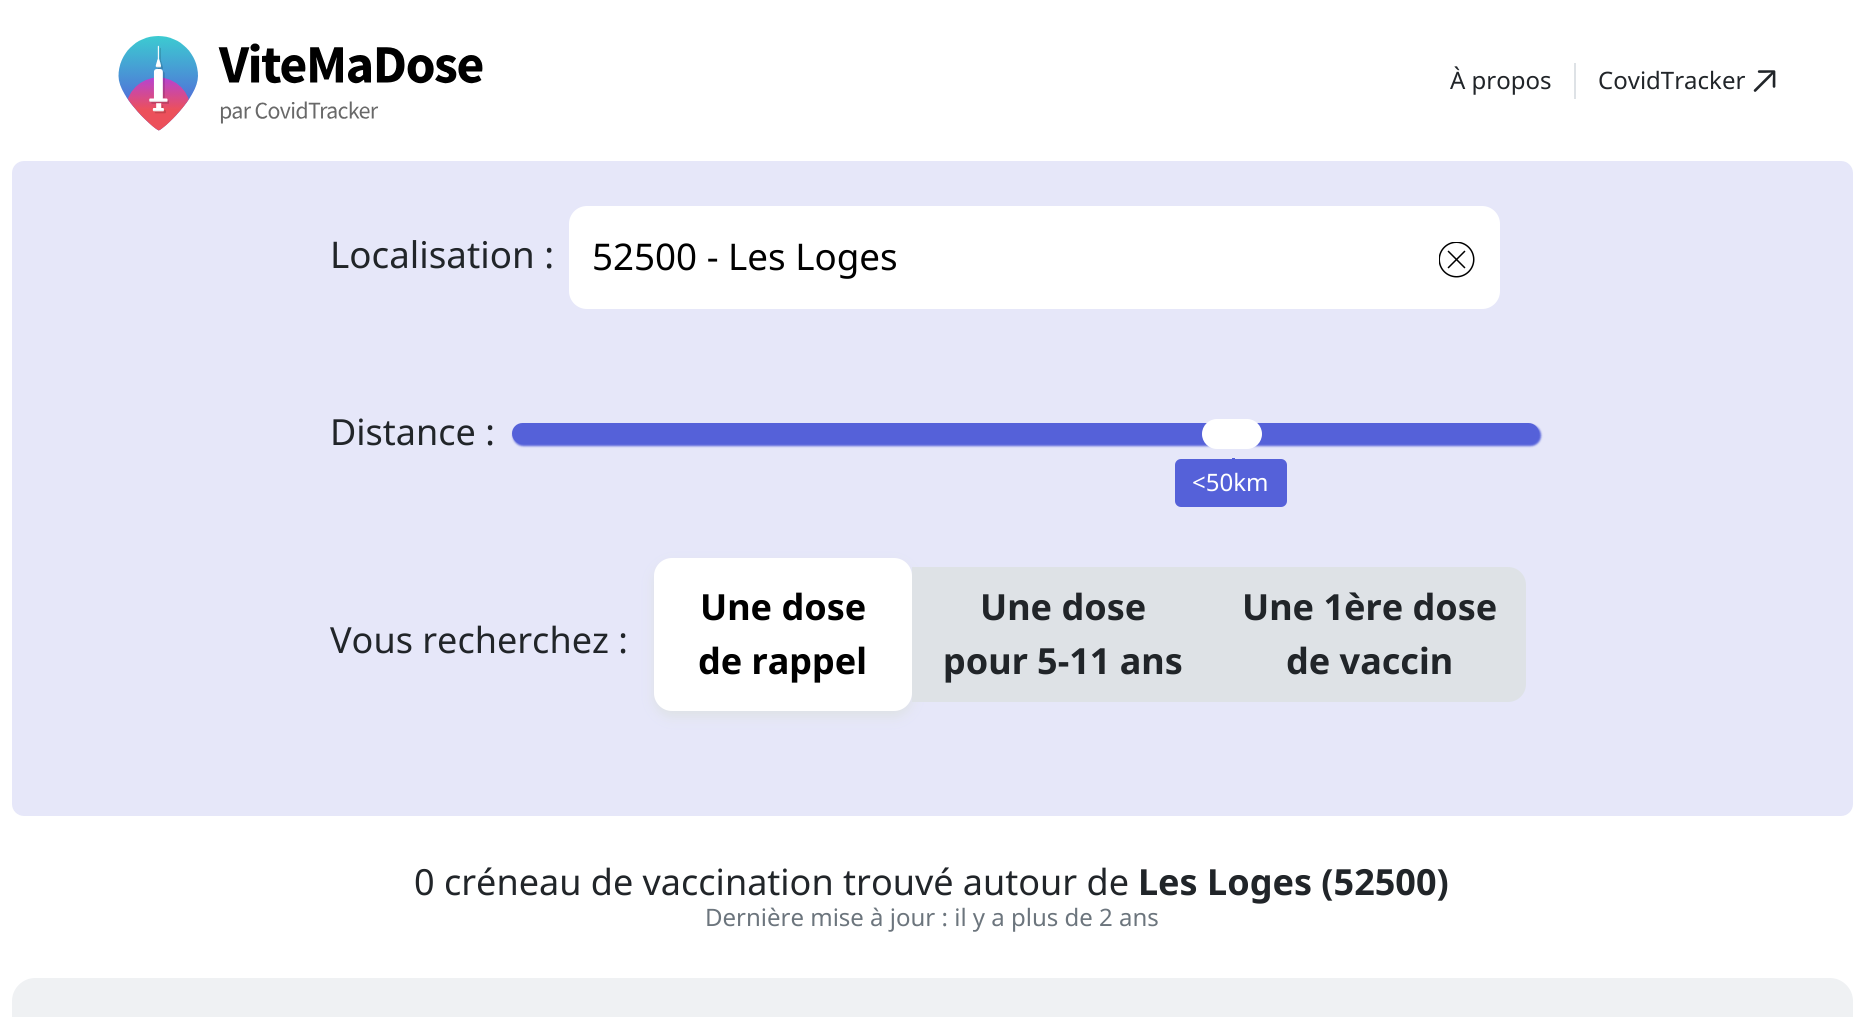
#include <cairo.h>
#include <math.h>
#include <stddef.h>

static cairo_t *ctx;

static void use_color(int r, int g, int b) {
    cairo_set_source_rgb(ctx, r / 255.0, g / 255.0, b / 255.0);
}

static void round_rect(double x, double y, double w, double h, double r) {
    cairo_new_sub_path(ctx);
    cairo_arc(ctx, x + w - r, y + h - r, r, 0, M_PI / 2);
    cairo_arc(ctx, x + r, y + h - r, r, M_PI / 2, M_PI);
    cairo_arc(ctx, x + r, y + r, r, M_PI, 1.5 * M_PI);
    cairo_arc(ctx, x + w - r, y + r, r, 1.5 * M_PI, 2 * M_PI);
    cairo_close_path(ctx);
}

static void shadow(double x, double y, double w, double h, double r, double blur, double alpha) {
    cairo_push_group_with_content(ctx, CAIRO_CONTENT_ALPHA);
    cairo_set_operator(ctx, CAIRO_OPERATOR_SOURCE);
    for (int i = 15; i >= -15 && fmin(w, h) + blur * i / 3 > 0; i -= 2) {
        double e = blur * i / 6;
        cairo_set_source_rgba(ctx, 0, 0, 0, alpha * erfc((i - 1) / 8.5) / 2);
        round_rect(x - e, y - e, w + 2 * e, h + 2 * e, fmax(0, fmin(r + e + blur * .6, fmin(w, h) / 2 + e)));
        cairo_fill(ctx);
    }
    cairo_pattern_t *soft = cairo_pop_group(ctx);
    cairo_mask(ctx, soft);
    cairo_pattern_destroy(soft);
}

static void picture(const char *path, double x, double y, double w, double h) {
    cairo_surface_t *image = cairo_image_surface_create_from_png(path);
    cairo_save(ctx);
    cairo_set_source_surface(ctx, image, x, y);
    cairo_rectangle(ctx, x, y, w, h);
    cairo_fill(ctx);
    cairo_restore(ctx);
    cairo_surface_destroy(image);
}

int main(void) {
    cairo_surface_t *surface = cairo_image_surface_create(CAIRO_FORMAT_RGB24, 1863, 1017);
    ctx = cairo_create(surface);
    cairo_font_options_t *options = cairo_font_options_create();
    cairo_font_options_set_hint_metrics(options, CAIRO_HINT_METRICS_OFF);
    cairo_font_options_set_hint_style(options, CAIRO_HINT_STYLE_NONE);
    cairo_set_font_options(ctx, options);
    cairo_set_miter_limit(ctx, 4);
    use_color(255, 255, 255);
    cairo_paint(ctx);
    picture("img1.png", 118, 36, 365, 95);
    cairo_select_font_face(ctx, "Noto Sans", CAIRO_FONT_SLANT_NORMAL, CAIRO_FONT_WEIGHT_NORMAL);
    cairo_set_font_size(ctx, 24);
    use_color(33, 37, 41);
    cairo_move_to(ctx, 1450, 89);
    cairo_show_text(ctx, "À propos");
    use_color(222, 226, 230);
    cairo_rectangle(ctx, 1574, 63, 2, 36);
    cairo_fill(ctx);
    use_color(33, 37, 41);
    cairo_move_to(ctx, 1598, 89);
    cairo_show_text(ctx, "CovidTracker");
    picture("img2.png", 1753, 70, 23, 22);
    use_color(230, 231, 249);
    round_rect(12, 161, 1841, 655, 12);
    cairo_fill(ctx);
    cairo_set_font_size(ctx, 36.75);
    use_color(33, 37, 41);
    cairo_move_to(ctx, 330, 268);
    cairo_show_text(ctx, "Localisation :");
    use_color(255, 255, 255);
    cairo_new_path(ctx);
    cairo_move_to(ctx, 587, 206);
    cairo_line_to(ctx, 1415, 206);
    cairo_line_to(ctx, 1415, 309);
    cairo_line_to(ctx, 587, 309);
    cairo_curve_to(ctx, 577, 309, 569, 301, 569, 291);
    cairo_line_to(ctx, 569, 224);
    cairo_curve_to(ctx, 569, 214, 577, 206, 587, 206);
    cairo_close_path(ctx);
    cairo_fill(ctx);
    use_color(0, 0, 0);
    cairo_move_to(ctx, 592, 270);
    cairo_show_text(ctx, "52500 - Les Loges");
    use_color(255, 255, 255);
    cairo_new_path(ctx);
    cairo_move_to(ctx, 1415, 206);
    cairo_line_to(ctx, 1482, 206);
    cairo_curve_to(ctx, 1492, 206, 1500, 214, 1500, 224);
    cairo_line_to(ctx, 1500, 291);
    cairo_curve_to(ctx, 1500, 301, 1492, 309, 1482, 309);
    cairo_line_to(ctx, 1415, 309);
    cairo_close_path(ctx);
    cairo_fill(ctx);
    picture("img3.png", 1439, 242, 36, 36);
    cairo_set_font_size(ctx, 36);
    use_color(33, 37, 41);
    cairo_move_to(ctx, 330, 445);
    cairo_show_text(ctx, "Distance :");
    use_color(85, 97, 217);
    shadow(513, 425, 1028, 21, 10.5, 1, 1);
    use_color(85, 97, 217);
    round_rect(512, 423, 1027, 21, 10.5);
    cairo_fill(ctx);
    use_color(255, 255, 255);
    round_rect(1202, 419, 60, 30, 15);
    cairo_fill(ctx);
    use_color(85, 97, 217);
    round_rect(1175, 459, 112, 48, 6);
    cairo_fill(ctx);
    cairo_rectangle(ctx, 1232, 458, 3, 1);
    cairo_fill(ctx);
    cairo_set_font_size(ctx, 24);
    use_color(255, 255, 255);
    cairo_move_to(ctx, 1192, 491);
    cairo_show_text(ctx, "<50km");
    cairo_set_font_size(ctx, 36);
    use_color(33, 37, 41);
    cairo_move_to(ctx, 330, 653);
    cairo_show_text(ctx, "Vous recherchez :");
    use_color(222, 226, 230);
    shadow(654, 564, 258, 153, 18, 6, 1);
    use_color(255, 255, 255);
    round_rect(654, 558, 258, 153, 18);
    cairo_fill(ctx);
    cairo_select_font_face(ctx, "Noto Sans", CAIRO_FONT_SLANT_NORMAL, CAIRO_FONT_WEIGHT_BOLD);
    use_color(0, 0, 0);
    cairo_move_to(ctx, 700, 620);
    cairo_show_text(ctx, "Une dose");
    cairo_move_to(ctx, 698, 674);
    cairo_show_text(ctx, "de rappel");
    use_color(222, 226, 230);
    cairo_rectangle(ctx, 912, 567, 302, 135);
    cairo_fill(ctx);
    use_color(33, 37, 41);
    cairo_move_to(ctx, 980, 620);
    cairo_show_text(ctx, "Une dose");
    cairo_move_to(ctx, 943, 674);
    cairo_show_text(ctx, "pour 5-11 ans");
    use_color(222, 226, 230);
    cairo_new_path(ctx);
    cairo_move_to(ctx, 1214, 567);
    cairo_line_to(ctx, 1508, 567);
    cairo_curve_to(ctx, 1518, 567, 1526, 575, 1526, 585);
    cairo_line_to(ctx, 1526, 684);
    cairo_curve_to(ctx, 1526, 694, 1518, 702, 1508, 702);
    cairo_line_to(ctx, 1214, 702);
    cairo_close_path(ctx);
    cairo_fill(ctx);
    use_color(33, 37, 41);
    cairo_move_to(ctx, 1242, 620);
    cairo_show_text(ctx, "Une 1ère dose");
    cairo_move_to(ctx, 1286, 674);
    cairo_show_text(ctx, "de vaccin");
    cairo_select_font_face(ctx, "Noto Sans", CAIRO_FONT_SLANT_NORMAL, CAIRO_FONT_WEIGHT_NORMAL);
    cairo_move_to(ctx, 414, 895);
    cairo_show_text(ctx, "0 créneau de vaccination trouvé autour de");
    cairo_select_font_face(ctx, "Noto Sans", CAIRO_FONT_SLANT_NORMAL, CAIRO_FONT_WEIGHT_BOLD);
    cairo_move_to(ctx, 1138, 895);
    cairo_show_text(ctx, "Les Loges (52500)");
    cairo_select_font_face(ctx, "Noto Sans", CAIRO_FONT_SLANT_NORMAL, CAIRO_FONT_WEIGHT_NORMAL);
    cairo_set_font_size(ctx, 24);
    use_color(108, 117, 125);
    cairo_move_to(ctx, 705, 926);
    cairo_show_text(ctx, "Dernière mise à jour : il y a plus de 2 ans");
    use_color(239, 241, 243);
    cairo_new_path(ctx);
    cairo_move_to(ctx, 35, 978);
    cairo_line_to(ctx, 1830, 978);
    cairo_curve_to(ctx, 1842.5, 978, 1853, 988.5, 1853, 1001);
    cairo_line_to(ctx, 1853, 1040);
    cairo_line_to(ctx, 12, 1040);
    cairo_line_to(ctx, 12, 1001);
    cairo_curve_to(ctx, 12, 988.5, 22.5, 978, 35, 978);
    cairo_close_path(ctx);
    cairo_fill(ctx);
    cairo_surface_write_to_png(surface, "result.png");
    cairo_font_options_destroy(options);
    cairo_destroy(ctx);
    cairo_surface_destroy(surface);
    return 0;
}
